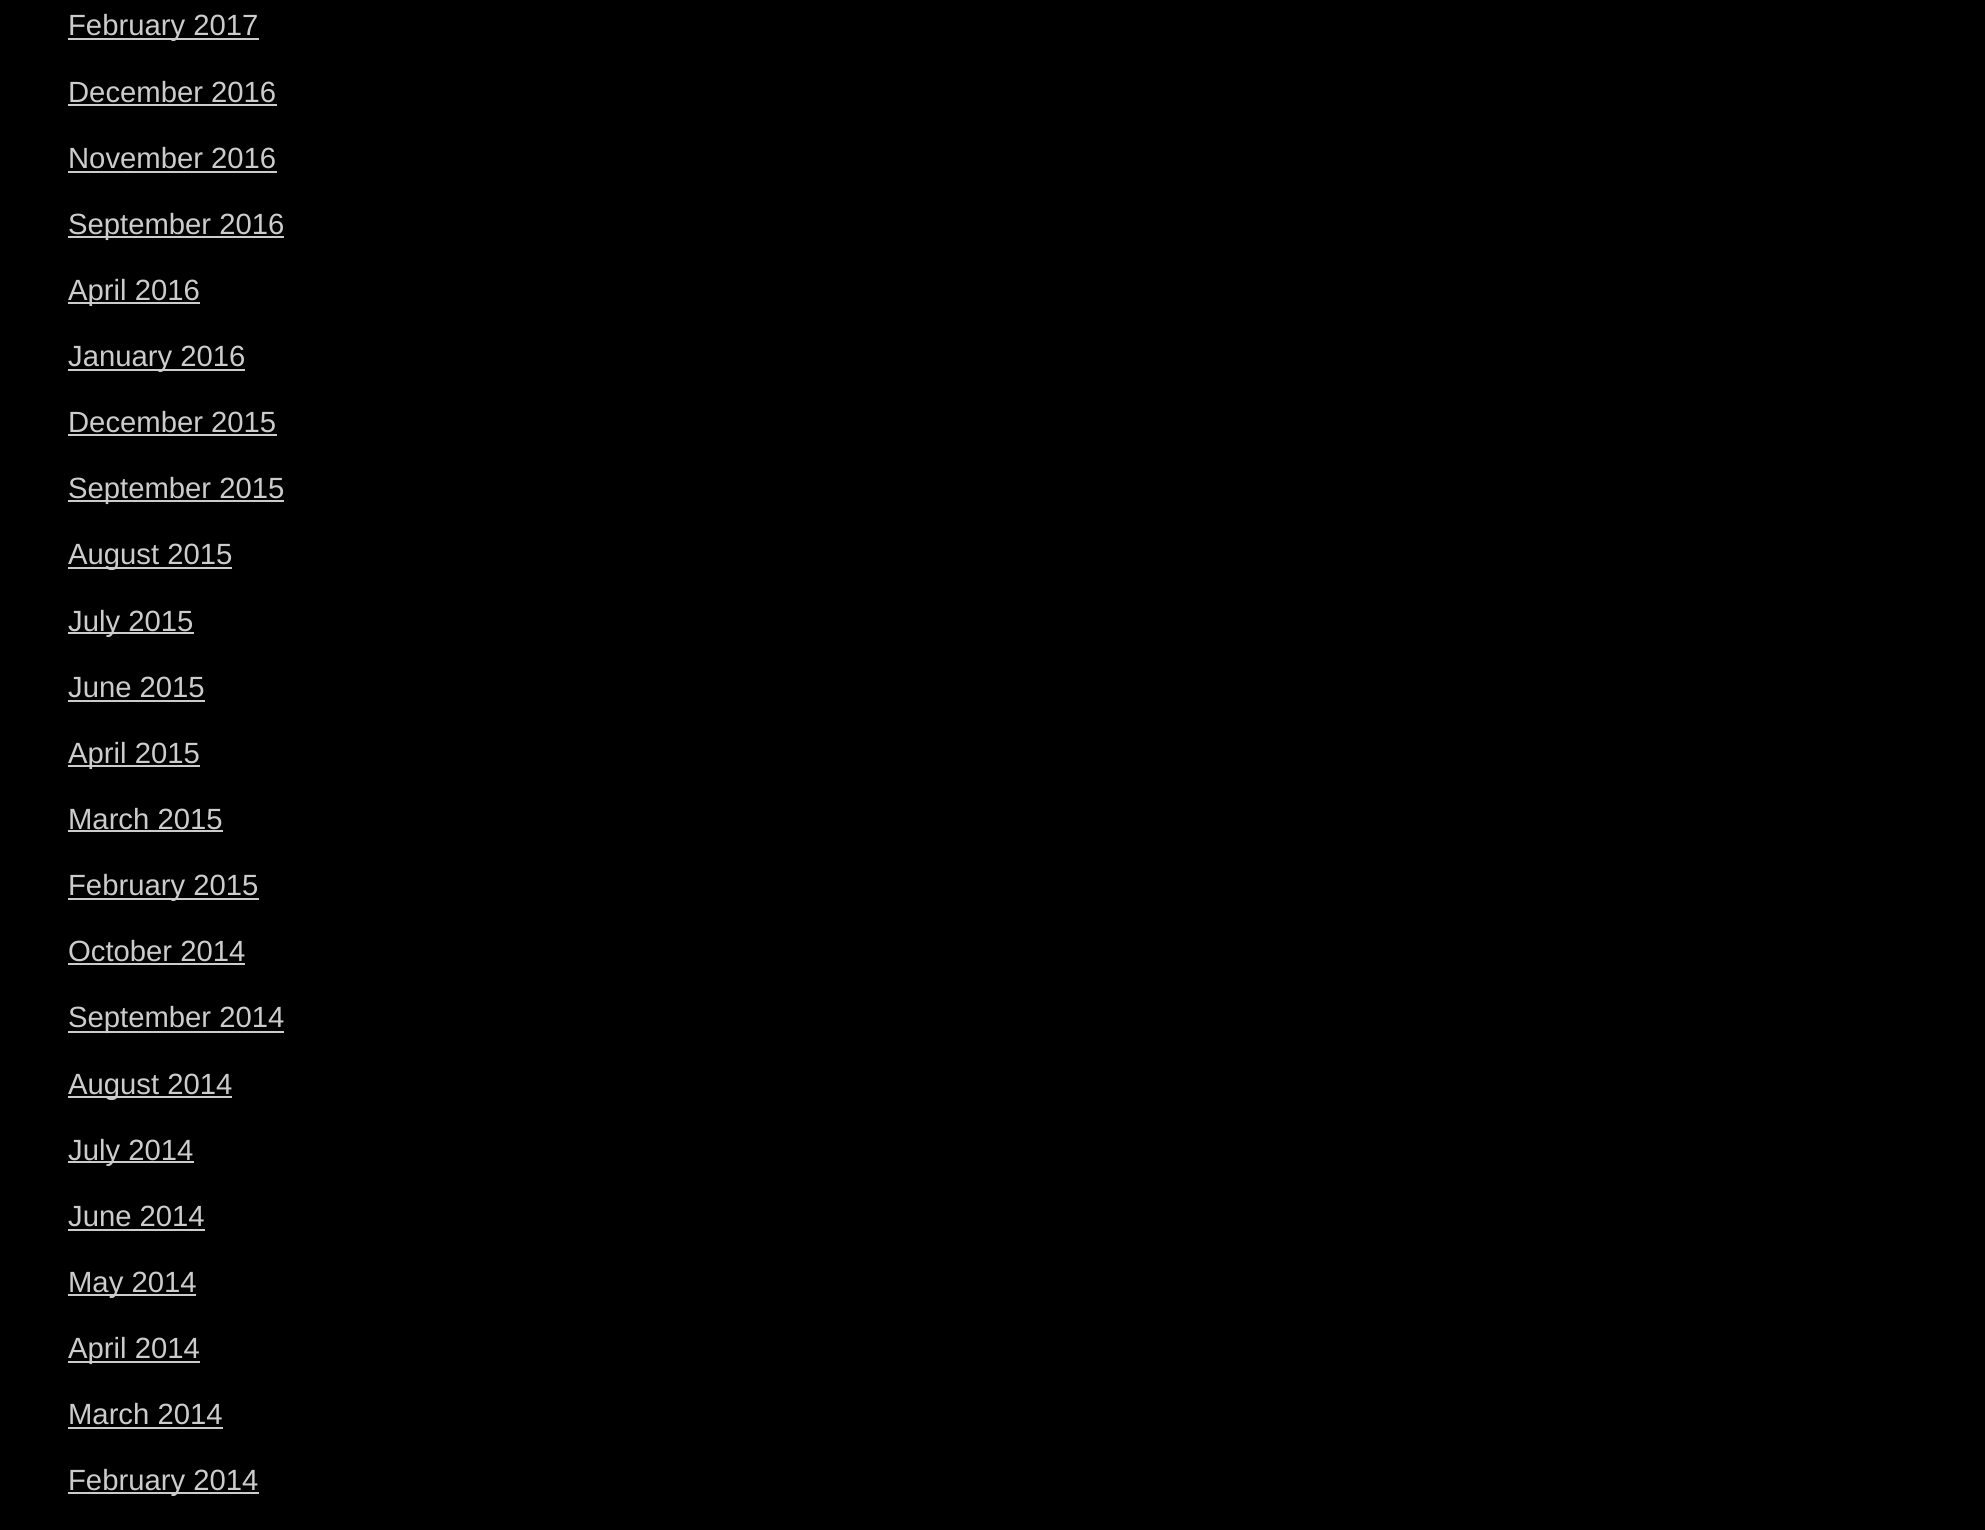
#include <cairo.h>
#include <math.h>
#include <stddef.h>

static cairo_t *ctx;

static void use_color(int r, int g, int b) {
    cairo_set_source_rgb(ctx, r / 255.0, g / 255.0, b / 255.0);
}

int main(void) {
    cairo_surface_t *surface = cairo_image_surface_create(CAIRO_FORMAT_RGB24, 1985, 1530);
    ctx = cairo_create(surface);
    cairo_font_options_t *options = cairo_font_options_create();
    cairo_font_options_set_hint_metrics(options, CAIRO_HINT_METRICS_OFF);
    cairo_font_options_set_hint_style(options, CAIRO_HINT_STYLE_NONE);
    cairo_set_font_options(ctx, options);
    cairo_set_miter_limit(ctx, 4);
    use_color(0, 0, 0);
    cairo_paint(ctx);
    use_color(204, 204, 204);
    cairo_rectangle(ctx, 68, 38, 191, 2);
    cairo_fill(ctx);
    cairo_select_font_face(ctx, "Liberation Sans", CAIRO_FONT_SLANT_NORMAL, CAIRO_FONT_WEIGHT_NORMAL);
    cairo_set_font_size(ctx, 29.25);
    cairo_move_to(ctx, 68, 35);
    cairo_show_text(ctx, "February 2017");
    cairo_move_to(ctx, 68, 102);
    cairo_show_text(ctx, "December 2016");
    cairo_rectangle(ctx, 68, 104, 209, 2);
    cairo_fill(ctx);
    cairo_move_to(ctx, 68, 168);
    cairo_show_text(ctx, "November 2016");
    cairo_rectangle(ctx, 68, 171, 209, 2);
    cairo_fill(ctx);
    cairo_rectangle(ctx, 68, 236, 216, 2);
    cairo_fill(ctx);
    cairo_move_to(ctx, 68, 234);
    cairo_show_text(ctx, "September 2016");
    cairo_rectangle(ctx, 68, 302, 132, 2);
    cairo_fill(ctx);
    cairo_move_to(ctx, 68, 300);
    cairo_show_text(ctx, "April 2016");
    cairo_rectangle(ctx, 68, 369, 177, 2);
    cairo_fill(ctx);
    cairo_move_to(ctx, 68, 366);
    cairo_show_text(ctx, "January 2016");
    cairo_move_to(ctx, 68, 432);
    cairo_show_text(ctx, "December 2015");
    cairo_rectangle(ctx, 68, 434, 209, 2);
    cairo_fill(ctx);
    cairo_rectangle(ctx, 68, 500, 216, 2);
    cairo_fill(ctx);
    cairo_move_to(ctx, 68, 498);
    cairo_show_text(ctx, "September 2015");
    cairo_rectangle(ctx, 68, 567, 164, 2);
    cairo_fill(ctx);
    cairo_move_to(ctx, 68, 564);
    cairo_show_text(ctx, "August 2015");
    cairo_rectangle(ctx, 68, 632, 126, 2);
    cairo_fill(ctx);
    cairo_move_to(ctx, 68, 631);
    cairo_show_text(ctx, "July 2015");
    cairo_move_to(ctx, 68, 697);
    cairo_show_text(ctx, "June 2015");
    cairo_rectangle(ctx, 68, 700, 137, 2);
    cairo_fill(ctx);
    cairo_rectangle(ctx, 68, 765, 132, 2);
    cairo_fill(ctx);
    cairo_move_to(ctx, 68, 763);
    cairo_show_text(ctx, "April 2015");
    cairo_move_to(ctx, 68, 829);
    cairo_show_text(ctx, "March 2015");
    cairo_rectangle(ctx, 68, 830, 155, 2);
    cairo_fill(ctx);
    cairo_rectangle(ctx, 68, 898, 191, 2);
    cairo_fill(ctx);
    cairo_move_to(ctx, 68, 895);
    cairo_show_text(ctx, "February 2015");
    cairo_move_to(ctx, 68, 961);
    cairo_show_text(ctx, "October 2014");
    cairo_rectangle(ctx, 68, 963, 177, 2);
    cairo_fill(ctx);
    cairo_rectangle(ctx, 68, 1031, 216, 2);
    cairo_fill(ctx);
    cairo_move_to(ctx, 68, 1027);
    cairo_show_text(ctx, "September 2014");
    cairo_rectangle(ctx, 68, 1096, 164, 2);
    cairo_fill(ctx);
    cairo_move_to(ctx, 68, 1094);
    cairo_show_text(ctx, "August 2014");
    cairo_rectangle(ctx, 68, 1161, 126, 2);
    cairo_fill(ctx);
    cairo_move_to(ctx, 68, 1160);
    cairo_show_text(ctx, "July 2014");
    cairo_move_to(ctx, 68, 1226);
    cairo_show_text(ctx, "June 2014");
    cairo_rectangle(ctx, 68, 1229, 137, 2);
    cairo_fill(ctx);
    cairo_rectangle(ctx, 68, 1294, 128, 2);
    cairo_fill(ctx);
    cairo_move_to(ctx, 68, 1292);
    cairo_show_text(ctx, "May 2014");
    cairo_rectangle(ctx, 68, 1361, 132, 2);
    cairo_fill(ctx);
    cairo_move_to(ctx, 68, 1358);
    cairo_show_text(ctx, "April 2014");
    cairo_move_to(ctx, 68, 1424);
    cairo_show_text(ctx, "March 2014");
    cairo_rectangle(ctx, 68, 1427, 155, 2);
    cairo_fill(ctx);
    cairo_rectangle(ctx, 68, 1492, 191, 2);
    cairo_fill(ctx);
    cairo_move_to(ctx, 68, 1490);
    cairo_show_text(ctx, "February 2014");
    cairo_surface_write_to_png(surface, "result.png");
    cairo_font_options_destroy(options);
    cairo_destroy(ctx);
    cairo_surface_destroy(surface);
    return 0;
}
